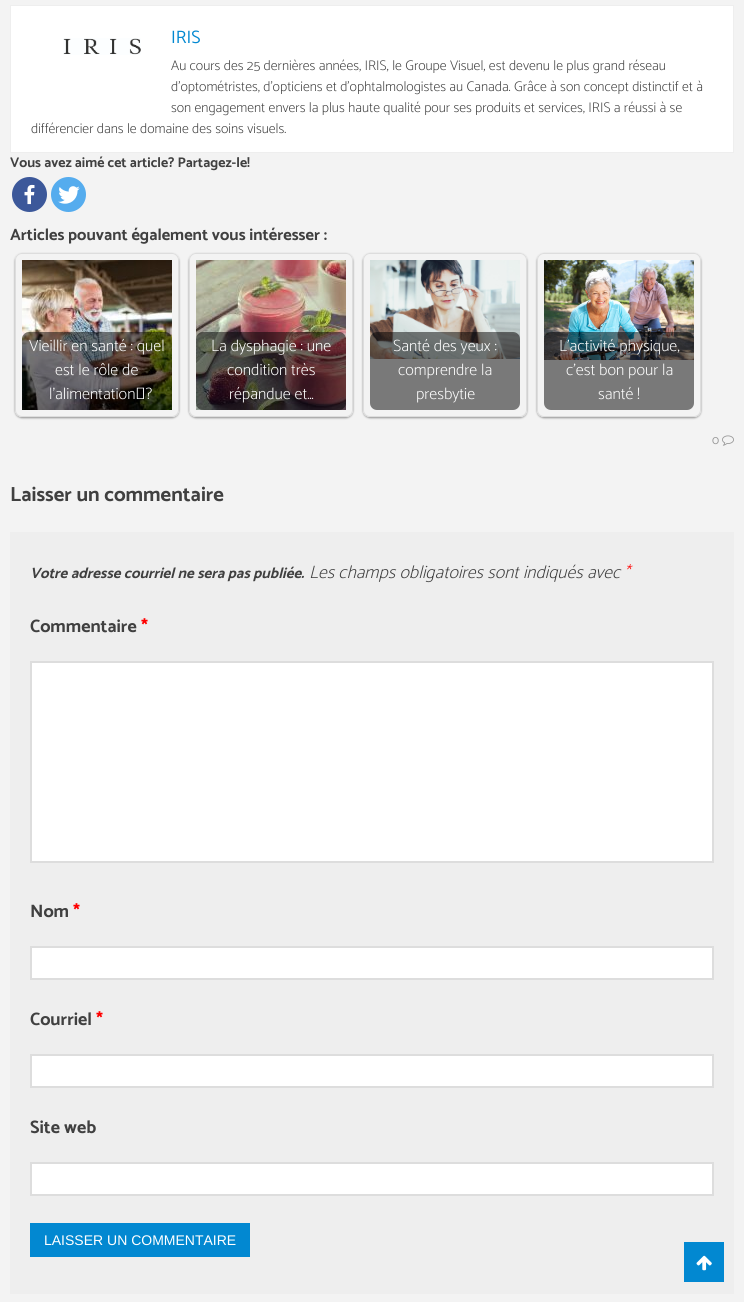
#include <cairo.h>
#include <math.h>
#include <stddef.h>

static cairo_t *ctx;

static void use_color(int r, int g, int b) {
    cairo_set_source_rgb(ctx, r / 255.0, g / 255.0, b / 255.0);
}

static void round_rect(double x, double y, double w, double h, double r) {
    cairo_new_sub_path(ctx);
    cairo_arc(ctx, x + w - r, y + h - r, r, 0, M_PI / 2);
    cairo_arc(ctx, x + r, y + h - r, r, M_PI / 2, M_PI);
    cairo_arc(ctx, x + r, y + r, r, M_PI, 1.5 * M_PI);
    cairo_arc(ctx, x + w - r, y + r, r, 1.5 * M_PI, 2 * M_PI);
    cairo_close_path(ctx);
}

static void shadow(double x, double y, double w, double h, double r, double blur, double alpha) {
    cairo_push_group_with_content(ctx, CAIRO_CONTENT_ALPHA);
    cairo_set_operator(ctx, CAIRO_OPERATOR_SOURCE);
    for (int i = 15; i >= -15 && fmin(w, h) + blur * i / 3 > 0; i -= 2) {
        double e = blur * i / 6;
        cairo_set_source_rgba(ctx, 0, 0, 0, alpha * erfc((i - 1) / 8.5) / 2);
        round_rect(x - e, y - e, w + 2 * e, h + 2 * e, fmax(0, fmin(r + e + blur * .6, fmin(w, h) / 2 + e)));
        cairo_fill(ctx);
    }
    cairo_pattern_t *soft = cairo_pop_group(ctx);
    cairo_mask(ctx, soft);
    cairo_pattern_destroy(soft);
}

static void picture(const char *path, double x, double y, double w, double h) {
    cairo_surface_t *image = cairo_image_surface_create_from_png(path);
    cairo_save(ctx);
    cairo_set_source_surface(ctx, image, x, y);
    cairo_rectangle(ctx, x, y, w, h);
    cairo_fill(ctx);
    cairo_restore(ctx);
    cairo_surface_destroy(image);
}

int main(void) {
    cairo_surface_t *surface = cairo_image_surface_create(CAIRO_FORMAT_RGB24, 744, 1302);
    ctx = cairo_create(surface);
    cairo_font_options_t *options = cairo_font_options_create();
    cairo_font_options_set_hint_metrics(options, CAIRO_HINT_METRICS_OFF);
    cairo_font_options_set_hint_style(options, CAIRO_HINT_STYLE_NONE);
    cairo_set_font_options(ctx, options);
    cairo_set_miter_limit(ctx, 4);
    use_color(243, 243, 243);
    cairo_paint(ctx);
    use_color(255, 255, 255);
    cairo_rectangle(ctx, 10.5, 5.5, 723, 147);
    cairo_fill_preserve(ctx);
    use_color(238, 238, 238);
    cairo_set_line_width(ctx, 1);
    cairo_stroke(ctx);
    picture("img1.png", 63, 38, 78, 17);
    cairo_select_font_face(ctx, "Catamaran", CAIRO_FONT_SLANT_NORMAL, CAIRO_FONT_WEIGHT_NORMAL);
    cairo_set_font_size(ctx, 18);
    use_color(2, 136, 209);
    cairo_move_to(ctx, 171, 43);
    cairo_show_text(ctx, "IRIS");
    cairo_select_font_face(ctx, "Catamaran ExtraLight", CAIRO_FONT_SLANT_NORMAL, CAIRO_FONT_WEIGHT_NORMAL);
    cairo_set_font_size(ctx, 14);
    use_color(64, 64, 64);
    cairo_move_to(ctx, 171, 70);
    cairo_show_text(ctx, "Au cours des 25 dernières années, IRIS, le Groupe Visuel, est devenu le plus grand réseau");
    cairo_move_to(ctx, 171, 91);
    cairo_show_text(ctx, "d’optométristes, d’opticiens et d’ophtalmologistes au Canada. Grâce à son concept distinctif et à");
    cairo_move_to(ctx, 171, 112);
    cairo_show_text(ctx, "son engagement envers la plus haute qualité pour ses produits et services, IRIS a réussi à se");
    cairo_move_to(ctx, 31, 133);
    cairo_show_text(ctx, "différencier dans le domaine des soins visuels.");
    cairo_select_font_face(ctx, "Catamaran", CAIRO_FONT_SLANT_NORMAL, CAIRO_FONT_WEIGHT_BOLD);
    cairo_move_to(ctx, 10, 167);
    cairo_show_text(ctx, "Vous avez aimé cet article? Partagez-le!");
    use_color(60, 88, 154);
    cairo_new_path(ctx);
    cairo_arc(ctx, 29.5, 194.5, 17.5, 0, 2 * M_PI);
    cairo_fill(ctx);
    picture("img2.png", 24, 184, 11, 21);
    use_color(85, 172, 238);
    cairo_arc(ctx, 68.5, 194.5, 17.5, 0, 2 * M_PI);
    cairo_fill(ctx);
    picture("img3.png", 58, 186, 22, 18);
    cairo_set_font_size(ctx, 16.4);
    use_color(64, 64, 64);
    cairo_move_to(ctx, 10, 240);
    cairo_show_text(ctx, "Articles pouvant également vous intéresser :");
    cairo_save(ctx);
    cairo_set_fill_rule(ctx, CAIRO_FILL_RULE_EVEN_ODD);
    cairo_new_path(ctx);
    cairo_move_to(ctx, 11, 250);
    cairo_line_to(ctx, 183, 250);
    cairo_line_to(ctx, 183, 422);
    cairo_line_to(ctx, 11, 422);
    cairo_close_path(ctx);
    cairo_move_to(ctx, 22, 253);
    cairo_line_to(ctx, 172, 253);
    cairo_curve_to(ctx, 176, 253, 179, 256, 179, 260);
    cairo_line_to(ctx, 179, 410);
    cairo_curve_to(ctx, 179, 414, 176, 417, 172, 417);
    cairo_line_to(ctx, 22, 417);
    cairo_curve_to(ctx, 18, 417, 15, 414, 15, 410);
    cairo_line_to(ctx, 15, 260);
    cairo_curve_to(ctx, 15, 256, 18, 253, 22, 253);
    cairo_close_path(ctx);
    cairo_clip(ctx);
    use_color(0, 0, 0);
    shadow(15, 254, 164, 164, 7, 1, 0.4);
    cairo_restore(ctx);
    round_rect(15.5, 253.5, 163, 163, 6.5);
    use_color(221, 221, 221);
    cairo_stroke(ctx);
    picture("img4.png", 22, 260, 150, 150);
    cairo_set_source_rgba(ctx, 0, 0, 0, 0.5);
    round_rect(22, 332, 150, 78, 7);
    cairo_fill(ctx);
    cairo_select_font_face(ctx, "Catamaran ExtraLight", CAIRO_FONT_SLANT_NORMAL, CAIRO_FONT_WEIGHT_NORMAL);
    cairo_set_font_size(ctx, 16.25);
    use_color(255, 255, 255);
    cairo_move_to(ctx, 29, 351);
    cairo_show_text(ctx, "Vieillir en santé : quel");
    cairo_move_to(ctx, 55, 375);
    cairo_show_text(ctx, "est le rôle de");
    cairo_move_to(ctx, 49, 399);
    cairo_show_text(ctx, "l’alimentation ?");
    cairo_save(ctx);
    cairo_set_fill_rule(ctx, CAIRO_FILL_RULE_EVEN_ODD);
    cairo_new_path(ctx);
    cairo_move_to(ctx, 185, 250);
    cairo_line_to(ctx, 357, 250);
    cairo_line_to(ctx, 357, 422);
    cairo_line_to(ctx, 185, 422);
    cairo_close_path(ctx);
    cairo_move_to(ctx, 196, 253);
    cairo_line_to(ctx, 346, 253);
    cairo_curve_to(ctx, 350, 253, 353, 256, 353, 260);
    cairo_line_to(ctx, 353, 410);
    cairo_curve_to(ctx, 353, 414, 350, 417, 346, 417);
    cairo_line_to(ctx, 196, 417);
    cairo_curve_to(ctx, 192, 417, 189, 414, 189, 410);
    cairo_line_to(ctx, 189, 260);
    cairo_curve_to(ctx, 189, 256, 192, 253, 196, 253);
    cairo_close_path(ctx);
    cairo_clip(ctx);
    use_color(0, 0, 0);
    shadow(189, 254, 164, 164, 7, 1, 0.4);
    cairo_restore(ctx);
    round_rect(189.5, 253.5, 163, 163, 6.5);
    use_color(221, 221, 221);
    cairo_stroke(ctx);
    picture("img5.png", 196, 260, 150, 150);
    cairo_set_source_rgba(ctx, 0, 0, 0, 0.5);
    round_rect(196, 332, 150, 78, 7);
    cairo_fill(ctx);
    use_color(255, 255, 255);
    cairo_move_to(ctx, 211, 351);
    cairo_show_text(ctx, "La dysphagie : une");
    cairo_move_to(ctx, 227, 375);
    cairo_show_text(ctx, "condition très");
    cairo_move_to(ctx, 229, 399);
    cairo_show_text(ctx, "répandue et…");
    cairo_save(ctx);
    cairo_set_fill_rule(ctx, CAIRO_FILL_RULE_EVEN_ODD);
    cairo_new_path(ctx);
    cairo_move_to(ctx, 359, 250);
    cairo_line_to(ctx, 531, 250);
    cairo_line_to(ctx, 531, 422);
    cairo_line_to(ctx, 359, 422);
    cairo_close_path(ctx);
    cairo_move_to(ctx, 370, 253);
    cairo_line_to(ctx, 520, 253);
    cairo_curve_to(ctx, 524, 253, 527, 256, 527, 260);
    cairo_line_to(ctx, 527, 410);
    cairo_curve_to(ctx, 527, 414, 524, 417, 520, 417);
    cairo_line_to(ctx, 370, 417);
    cairo_curve_to(ctx, 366, 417, 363, 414, 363, 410);
    cairo_line_to(ctx, 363, 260);
    cairo_curve_to(ctx, 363, 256, 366, 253, 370, 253);
    cairo_close_path(ctx);
    cairo_clip(ctx);
    use_color(0, 0, 0);
    shadow(363, 254, 164, 164, 7, 1, 0.4);
    cairo_restore(ctx);
    round_rect(363.5, 253.5, 163, 163, 6.5);
    use_color(221, 221, 221);
    cairo_stroke(ctx);
    picture("img6.png", 370, 260, 150, 99);
    cairo_set_source_rgba(ctx, 0, 0, 0, 0.5);
    round_rect(370, 332, 150, 78, 7);
    cairo_fill(ctx);
    use_color(255, 255, 255);
    cairo_move_to(ctx, 393, 351);
    cairo_show_text(ctx, "Santé des yeux :");
    cairo_move_to(ctx, 398, 375);
    cairo_show_text(ctx, "comprendre la");
    cairo_move_to(ctx, 416, 399);
    cairo_show_text(ctx, "presbytie");
    cairo_save(ctx);
    cairo_set_fill_rule(ctx, CAIRO_FILL_RULE_EVEN_ODD);
    cairo_new_path(ctx);
    cairo_move_to(ctx, 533, 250);
    cairo_line_to(ctx, 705, 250);
    cairo_line_to(ctx, 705, 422);
    cairo_line_to(ctx, 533, 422);
    cairo_close_path(ctx);
    cairo_move_to(ctx, 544, 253);
    cairo_line_to(ctx, 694, 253);
    cairo_curve_to(ctx, 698, 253, 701, 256, 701, 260);
    cairo_line_to(ctx, 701, 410);
    cairo_curve_to(ctx, 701, 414, 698, 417, 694, 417);
    cairo_line_to(ctx, 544, 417);
    cairo_curve_to(ctx, 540, 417, 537, 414, 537, 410);
    cairo_line_to(ctx, 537, 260);
    cairo_curve_to(ctx, 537, 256, 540, 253, 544, 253);
    cairo_close_path(ctx);
    cairo_clip(ctx);
    use_color(0, 0, 0);
    shadow(537, 254, 164, 164, 7, 1, 0.4);
    cairo_restore(ctx);
    round_rect(537.5, 253.5, 163, 163, 6.5);
    use_color(221, 221, 221);
    cairo_stroke(ctx);
    picture("img7.png", 544, 260, 150, 100);
    cairo_set_source_rgba(ctx, 0, 0, 0, 0.5);
    round_rect(544, 332, 150, 78, 7);
    cairo_fill(ctx);
    use_color(255, 255, 255);
    cairo_move_to(ctx, 559, 351);
    cairo_show_text(ctx, "L’activité physique,");
    cairo_move_to(ctx, 566, 375);
    cairo_show_text(ctx, "c’est bon pour la");
    cairo_move_to(ctx, 598, 399);
    cairo_show_text(ctx, "santé !");
    cairo_select_font_face(ctx, "Catamaran", CAIRO_FONT_SLANT_NORMAL, CAIRO_FONT_WEIGHT_NORMAL);
    cairo_set_font_size(ctx, 12);
    use_color(153, 153, 153);
    cairo_move_to(ctx, 712, 444);
    cairo_show_text(ctx, "0");
    picture("img8.png", 722, 435, 12, 11);
    cairo_select_font_face(ctx, "Catamaran", CAIRO_FONT_SLANT_NORMAL, CAIRO_FONT_WEIGHT_BOLD);
    cairo_set_font_size(ctx, 20.5);
    use_color(64, 64, 64);
    cairo_move_to(ctx, 10, 501);
    cairo_show_text(ctx, "Laisser un commentaire");
    use_color(238, 238, 238);
    cairo_rectangle(ctx, 10, 532, 724, 762);
    cairo_fill(ctx);
    cairo_select_font_face(ctx, "Catamaran", CAIRO_FONT_SLANT_ITALIC, CAIRO_FONT_WEIGHT_BOLD);
    cairo_set_font_size(ctx, 15);
    use_color(64, 64, 64);
    cairo_move_to(ctx, 30, 578);
    cairo_show_text(ctx, "Votre adresse courriel ne sera pas publiée.");
    cairo_select_font_face(ctx, "Catamaran ExtraLight", CAIRO_FONT_SLANT_ITALIC, CAIRO_FONT_WEIGHT_NORMAL);
    cairo_set_font_size(ctx, 18);
    cairo_move_to(ctx, 309, 578);
    cairo_show_text(ctx, "Les champs obligatoires sont indiqués avec");
    use_color(255, 0, 0);
    cairo_move_to(ctx, 624, 578);
    cairo_show_text(ctx, "*");
    cairo_select_font_face(ctx, "Catamaran", CAIRO_FONT_SLANT_NORMAL, CAIRO_FONT_WEIGHT_BOLD);
    use_color(64, 64, 64);
    cairo_move_to(ctx, 30, 632);
    cairo_show_text(ctx, "Commentaire");
    use_color(255, 0, 0);
    cairo_move_to(ctx, 141, 632);
    cairo_show_text(ctx, "*");
    use_color(255, 255, 255);
    cairo_rectangle(ctx, 31, 662, 682, 200);
    cairo_fill_preserve(ctx);
    use_color(221, 221, 221);
    cairo_set_line_width(ctx, 2);
    cairo_stroke(ctx);
    use_color(64, 64, 64);
    cairo_move_to(ctx, 30, 917);
    cairo_show_text(ctx, "Nom");
    use_color(255, 0, 0);
    cairo_move_to(ctx, 73, 917);
    cairo_show_text(ctx, "*");
    use_color(255, 255, 255);
    cairo_rectangle(ctx, 31, 947, 682, 32);
    cairo_fill_preserve(ctx);
    use_color(221, 221, 221);
    cairo_stroke(ctx);
    use_color(64, 64, 64);
    cairo_move_to(ctx, 30, 1025);
    cairo_show_text(ctx, "Courriel");
    use_color(255, 0, 0);
    cairo_move_to(ctx, 96, 1025);
    cairo_show_text(ctx, "*");
    use_color(255, 255, 255);
    cairo_rectangle(ctx, 31, 1055, 682, 32);
    cairo_fill_preserve(ctx);
    use_color(221, 221, 221);
    cairo_stroke(ctx);
    use_color(64, 64, 64);
    cairo_move_to(ctx, 30, 1133);
    cairo_show_text(ctx, "Site web");
    use_color(255, 255, 255);
    cairo_rectangle(ctx, 31, 1163, 682, 32);
    cairo_fill_preserve(ctx);
    use_color(221, 221, 221);
    cairo_stroke(ctx);
    use_color(2, 136, 209);
    cairo_rectangle(ctx, 30, 1223, 220, 34);
    cairo_fill(ctx);
    cairo_select_font_face(ctx, "Liberation Sans", CAIRO_FONT_SLANT_NORMAL, CAIRO_FONT_WEIGHT_NORMAL);
    cairo_set_font_size(ctx, 14);
    use_color(255, 255, 255);
    cairo_move_to(ctx, 44, 1245);
    cairo_show_text(ctx, "LAISSER UN COMMENTAIRE");
    use_color(2, 136, 209);
    cairo_rectangle(ctx, 684, 1242, 40, 40);
    cairo_fill(ctx);
    picture("img9.png", 696, 1255, 16, 16);
    cairo_surface_write_to_png(surface, "result.png");
    cairo_font_options_destroy(options);
    cairo_destroy(ctx);
    cairo_surface_destroy(surface);
    return 0;
}
